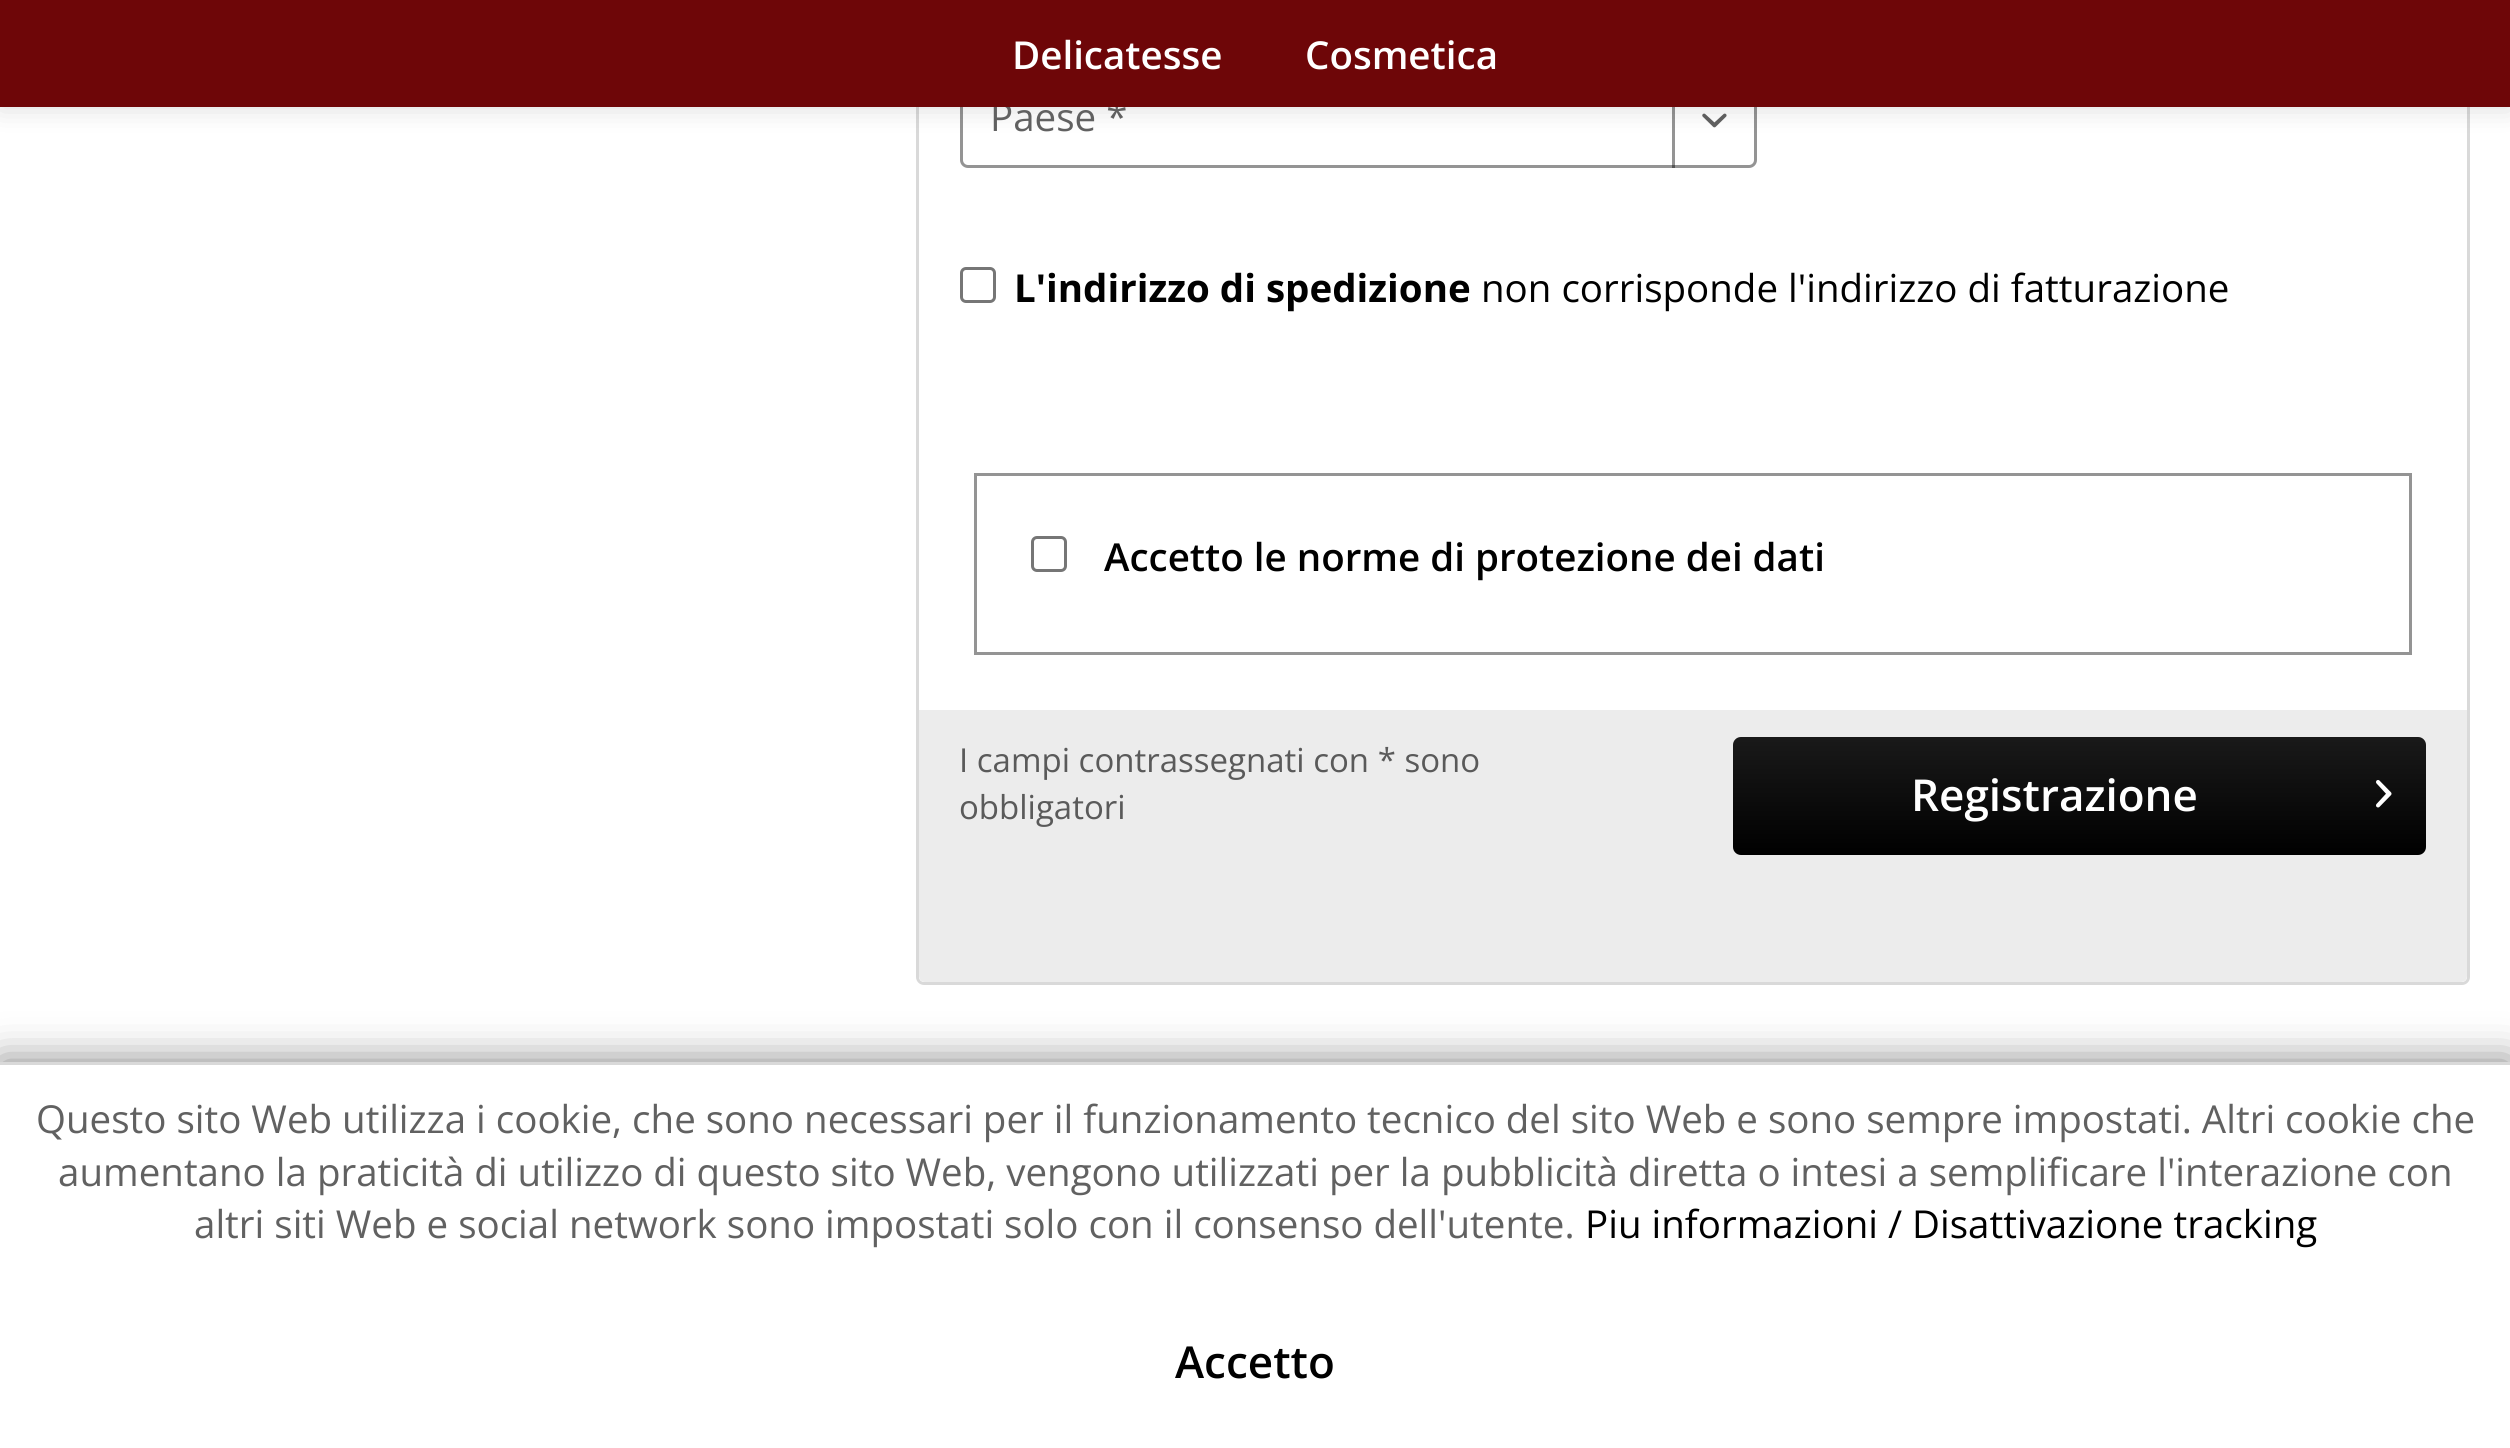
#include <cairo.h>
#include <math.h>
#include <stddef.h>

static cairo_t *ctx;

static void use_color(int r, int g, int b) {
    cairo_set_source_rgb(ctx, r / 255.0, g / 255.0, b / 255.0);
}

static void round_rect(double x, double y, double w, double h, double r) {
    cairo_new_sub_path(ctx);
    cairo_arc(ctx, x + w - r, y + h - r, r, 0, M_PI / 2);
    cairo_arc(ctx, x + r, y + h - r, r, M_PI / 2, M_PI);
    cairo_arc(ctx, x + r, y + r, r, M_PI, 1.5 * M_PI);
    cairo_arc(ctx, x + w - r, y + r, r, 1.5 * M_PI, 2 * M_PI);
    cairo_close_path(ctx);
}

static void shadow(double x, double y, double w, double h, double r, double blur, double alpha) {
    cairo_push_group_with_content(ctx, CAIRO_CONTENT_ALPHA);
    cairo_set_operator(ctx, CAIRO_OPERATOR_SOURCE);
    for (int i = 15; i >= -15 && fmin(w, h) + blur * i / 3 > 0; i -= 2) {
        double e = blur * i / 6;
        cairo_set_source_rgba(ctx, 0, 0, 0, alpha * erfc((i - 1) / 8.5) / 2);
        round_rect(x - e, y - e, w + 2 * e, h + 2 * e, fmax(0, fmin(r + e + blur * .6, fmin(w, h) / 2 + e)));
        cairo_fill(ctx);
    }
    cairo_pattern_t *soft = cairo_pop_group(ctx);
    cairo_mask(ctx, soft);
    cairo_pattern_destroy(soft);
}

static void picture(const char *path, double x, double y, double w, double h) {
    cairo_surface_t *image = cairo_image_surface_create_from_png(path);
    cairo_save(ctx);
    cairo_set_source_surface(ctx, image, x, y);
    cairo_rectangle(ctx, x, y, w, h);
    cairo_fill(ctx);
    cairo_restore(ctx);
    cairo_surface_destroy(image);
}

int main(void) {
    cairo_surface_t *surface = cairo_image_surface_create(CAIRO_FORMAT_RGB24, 2510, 1448);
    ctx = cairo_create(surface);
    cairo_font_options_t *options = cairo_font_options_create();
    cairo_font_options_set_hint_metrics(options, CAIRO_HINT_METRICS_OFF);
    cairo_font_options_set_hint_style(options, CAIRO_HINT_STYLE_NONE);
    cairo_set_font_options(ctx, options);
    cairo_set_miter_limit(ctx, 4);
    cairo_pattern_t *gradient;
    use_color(255, 255, 255);
    cairo_paint(ctx);
    round_rect(917.5, -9.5, 1551, 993, 6.5);
    use_color(217, 217, 217);
    cairo_set_line_width(ctx, 3);
    cairo_stroke(ctx);
    round_rect(961.5, 70.5, 794, 96, 6.5);
    use_color(148, 148, 148);
    cairo_stroke(ctx);
    cairo_set_source_rgba(ctx, 0, 0, 0, 0.42);
    cairo_rectangle(ctx, 1672, 107, 3, 61);
    cairo_fill(ctx);
    picture("img1.png", 1702, 113, 25, 15);
    use_color(0, 0, 0);
    shadow(0, 0, 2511, 107, 0, 14, 0.15);
    cairo_select_font_face(ctx, "Open Sans", CAIRO_FONT_SLANT_NORMAL, CAIRO_FONT_WEIGHT_NORMAL);
    cairo_set_font_size(ctx, 38.5);
    use_color(97, 97, 97);
    cairo_move_to(ctx, 990, 131);
    cairo_show_text(ctx, "Paese *");
    use_color(110, 6, 8);
    cairo_rectangle(ctx, 0, 0, 2510, 107);
    cairo_fill(ctx);
    cairo_select_font_face(ctx, "Open Sans SemiBold", CAIRO_FONT_SLANT_NORMAL, CAIRO_FONT_WEIGHT_NORMAL);
    use_color(255, 255, 255);
    cairo_move_to(ctx, 1012, 69);
    cairo_show_text(ctx, "Delicatesse");
    cairo_move_to(ctx, 1305, 69);
    cairo_show_text(ctx, "Cosmetica");
    round_rect(961.5, 268.5, 33, 33, 4.5);
    use_color(118, 118, 118);
    cairo_stroke(ctx);
    cairo_select_font_face(ctx, "Open Sans", CAIRO_FONT_SLANT_NORMAL, CAIRO_FONT_WEIGHT_BOLD);
    use_color(0, 0, 0);
    cairo_move_to(ctx, 1014, 302);
    cairo_show_text(ctx, "L'indirizzo di spedizione");
    cairo_select_font_face(ctx, "Open Sans", CAIRO_FONT_SLANT_NORMAL, CAIRO_FONT_WEIGHT_NORMAL);
    cairo_move_to(ctx, 1481, 302);
    cairo_show_text(ctx, "non corrisponde l'indirizzo di fatturazione");
    cairo_rectangle(ctx, 975.5, 474.5, 1435, 179);
    use_color(148, 148, 148);
    cairo_stroke(ctx);
    round_rect(1032.5, 537.5, 33, 33, 4.5);
    use_color(118, 118, 118);
    cairo_stroke(ctx);
    cairo_select_font_face(ctx, "Open Sans SemiBold", CAIRO_FONT_SLANT_NORMAL, CAIRO_FONT_WEIGHT_NORMAL);
    use_color(0, 0, 0);
    cairo_move_to(ctx, 1104, 571);
    cairo_show_text(ctx, "Accetto le norme di protezione dei dati");
    use_color(236, 236, 236);
    cairo_new_path(ctx);
    cairo_move_to(ctx, 919, 710);
    cairo_line_to(ctx, 2467, 710);
    cairo_line_to(ctx, 2467, 976);
    cairo_curve_to(ctx, 2467, 979.5, 2464.5, 982, 2461, 982);
    cairo_line_to(ctx, 925, 982);
    cairo_curve_to(ctx, 921.5, 982, 919, 979.5, 919, 976);
    cairo_close_path(ctx);
    cairo_fill(ctx);
    cairo_select_font_face(ctx, "Open Sans", CAIRO_FONT_SLANT_NORMAL, CAIRO_FONT_WEIGHT_NORMAL);
    cairo_set_font_size(ctx, 33);
    use_color(90, 90, 90);
    cairo_move_to(ctx, 959, 772);
    cairo_show_text(ctx, "I campi contrassegnati con * sono");
    cairo_move_to(ctx, 959, 819);
    cairo_show_text(ctx, "obbligatori");
    use_color(0, 0, 0);
    round_rect(1733, 737, 693, 118, 8);
    cairo_fill(ctx);
    gradient = cairo_pattern_create_linear(2079, 737, 2079, 855);
    cairo_pattern_add_color_stop_rgba(gradient, 0, 1, 1, 1, 0.1);
    cairo_pattern_add_color_stop_rgba(gradient, 1, 1, 1, 1, 0);
    cairo_set_source(ctx, gradient);
    cairo_pattern_destroy(gradient);
    round_rect(1733, 737, 693, 118, 8);
    cairo_fill(ctx);
    cairo_select_font_face(ctx, "Open Sans SemiBold", CAIRO_FONT_SLANT_NORMAL, CAIRO_FONT_WEIGHT_NORMAL);
    cairo_set_font_size(ctx, 44);
    use_color(255, 255, 255);
    cairo_move_to(ctx, 1911, 811);
    cairo_show_text(ctx, "Registrazione");
    picture("img2.png", 2376, 780, 16, 28);
    use_color(0, 0, 0);
    shadow(0, 1062, 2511, 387, 0, 20.5, 0.5);
    use_color(255, 255, 255);
    cairo_rectangle(ctx, 0, 1065, 2510, 383);
    cairo_fill(ctx);
    use_color(217, 217, 217);
    cairo_rectangle(ctx, 0, 1062, 2510, 3);
    cairo_fill(ctx);
    cairo_select_font_face(ctx, "Open Sans", CAIRO_FONT_SLANT_NORMAL, CAIRO_FONT_WEIGHT_NORMAL);
    cairo_set_font_size(ctx, 38.5);
    use_color(97, 97, 97);
    cairo_move_to(ctx, 36, 1133);
    cairo_show_text(ctx, "Questo sito Web utilizza i cookie, che sono necessari per il funzionamento tecnico del sito Web e sono sempre impostati. Altri cookie che");
    cairo_move_to(ctx, 58, 1186);
    cairo_show_text(ctx, "aumentano la praticità di utilizzo di questo sito Web, vengono utilizzati per la pubblicità diretta o intesi a semplificare l'interazione con");
    cairo_move_to(ctx, 194, 1238);
    cairo_show_text(ctx, "altri siti Web e social network sono impostati solo con il consenso dell'utente.");
    use_color(0, 0, 0);
    cairo_move_to(ctx, 1585, 1238);
    cairo_show_text(ctx, "Piu informazioni / Disattivazione tracking");
    cairo_select_font_face(ctx, "Open Sans SemiBold", CAIRO_FONT_SLANT_NORMAL, CAIRO_FONT_WEIGHT_NORMAL);
    cairo_set_font_size(ctx, 44);
    cairo_move_to(ctx, 1175, 1378);
    cairo_show_text(ctx, "Accetto");
    cairo_surface_write_to_png(surface, "result.png");
    cairo_font_options_destroy(options);
    cairo_destroy(ctx);
    cairo_surface_destroy(surface);
    return 0;
}
